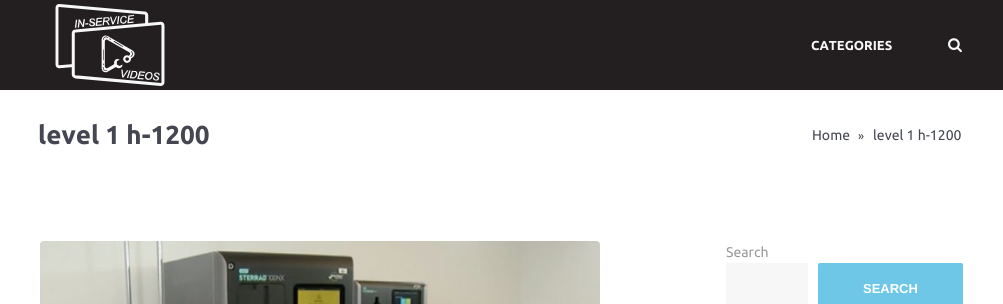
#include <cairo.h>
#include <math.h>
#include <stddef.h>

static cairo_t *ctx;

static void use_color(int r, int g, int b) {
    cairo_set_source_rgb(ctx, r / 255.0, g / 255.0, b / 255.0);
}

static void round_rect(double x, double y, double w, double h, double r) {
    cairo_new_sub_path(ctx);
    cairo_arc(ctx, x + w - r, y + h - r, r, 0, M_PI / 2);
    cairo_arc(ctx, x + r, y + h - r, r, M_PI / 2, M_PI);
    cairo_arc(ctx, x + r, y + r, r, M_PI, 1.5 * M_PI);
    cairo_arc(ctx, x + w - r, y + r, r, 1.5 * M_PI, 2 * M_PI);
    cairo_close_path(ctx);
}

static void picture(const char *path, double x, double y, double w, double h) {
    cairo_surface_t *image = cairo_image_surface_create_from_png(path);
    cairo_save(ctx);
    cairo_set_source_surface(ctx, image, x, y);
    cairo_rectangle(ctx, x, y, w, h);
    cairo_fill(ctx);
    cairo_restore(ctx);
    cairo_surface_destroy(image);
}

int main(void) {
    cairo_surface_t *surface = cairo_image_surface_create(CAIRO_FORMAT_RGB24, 1003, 304);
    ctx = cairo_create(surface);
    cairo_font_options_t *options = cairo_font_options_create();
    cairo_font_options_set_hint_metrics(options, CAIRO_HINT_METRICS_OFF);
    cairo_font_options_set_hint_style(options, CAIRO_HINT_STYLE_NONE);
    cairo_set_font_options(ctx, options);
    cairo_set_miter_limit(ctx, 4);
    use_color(255, 255, 255);
    cairo_paint(ctx);
    use_color(35, 31, 32);
    cairo_rectangle(ctx, 0, 0, 1003, 90);
    cairo_fill(ctx);
    picture("img1.png", 55, 4, 110, 82);
    cairo_select_font_face(ctx, "Ubuntu", CAIRO_FONT_SLANT_NORMAL, CAIRO_FONT_WEIGHT_BOLD);
    cairo_set_font_size(ctx, 13);
    use_color(247, 247, 247);
    cairo_move_to(ctx, 811, 50);
    cairo_show_text(ctx, "CATEGORIES");
    picture("img2.png", 948, 38, 14, 15);
    cairo_set_font_size(ctx, 26);
    use_color(68, 71, 81);
    cairo_move_to(ctx, 38, 144);
    cairo_show_text(ctx, "level 1 h-1200");
    cairo_select_font_face(ctx, "Ubuntu", CAIRO_FONT_SLANT_NORMAL, CAIRO_FONT_WEIGHT_NORMAL);
    cairo_set_font_size(ctx, 14);
    cairo_move_to(ctx, 812, 140);
    cairo_show_text(ctx, "Home");
    cairo_set_font_size(ctx, 12);
    cairo_move_to(ctx, 858, 140);
    cairo_show_text(ctx, "»");
    cairo_set_font_size(ctx, 14);
    cairo_move_to(ctx, 873, 140);
    cairo_show_text(ctx, "level 1 h-1200");
    picture("img3.png", 40, 241, 560, 63);
    use_color(153, 153, 153);
    cairo_move_to(ctx, 726, 257);
    cairo_show_text(ctx, "Search");
    use_color(247, 247, 247);
    cairo_rectangle(ctx, 726, 263, 82, 41);
    cairo_fill(ctx);
    use_color(110, 199, 231);
    round_rect(818, 263, 145, 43, 2);
    cairo_fill(ctx);
    cairo_select_font_face(ctx, "Liberation Sans", CAIRO_FONT_SLANT_NORMAL, CAIRO_FONT_WEIGHT_BOLD);
    cairo_set_font_size(ctx, 13);
    use_color(255, 255, 255);
    cairo_move_to(ctx, 863, 293);
    cairo_show_text(ctx, "SEARCH");
    cairo_surface_write_to_png(surface, "result.png");
    cairo_font_options_destroy(options);
    cairo_destroy(ctx);
    cairo_surface_destroy(surface);
    return 0;
}
